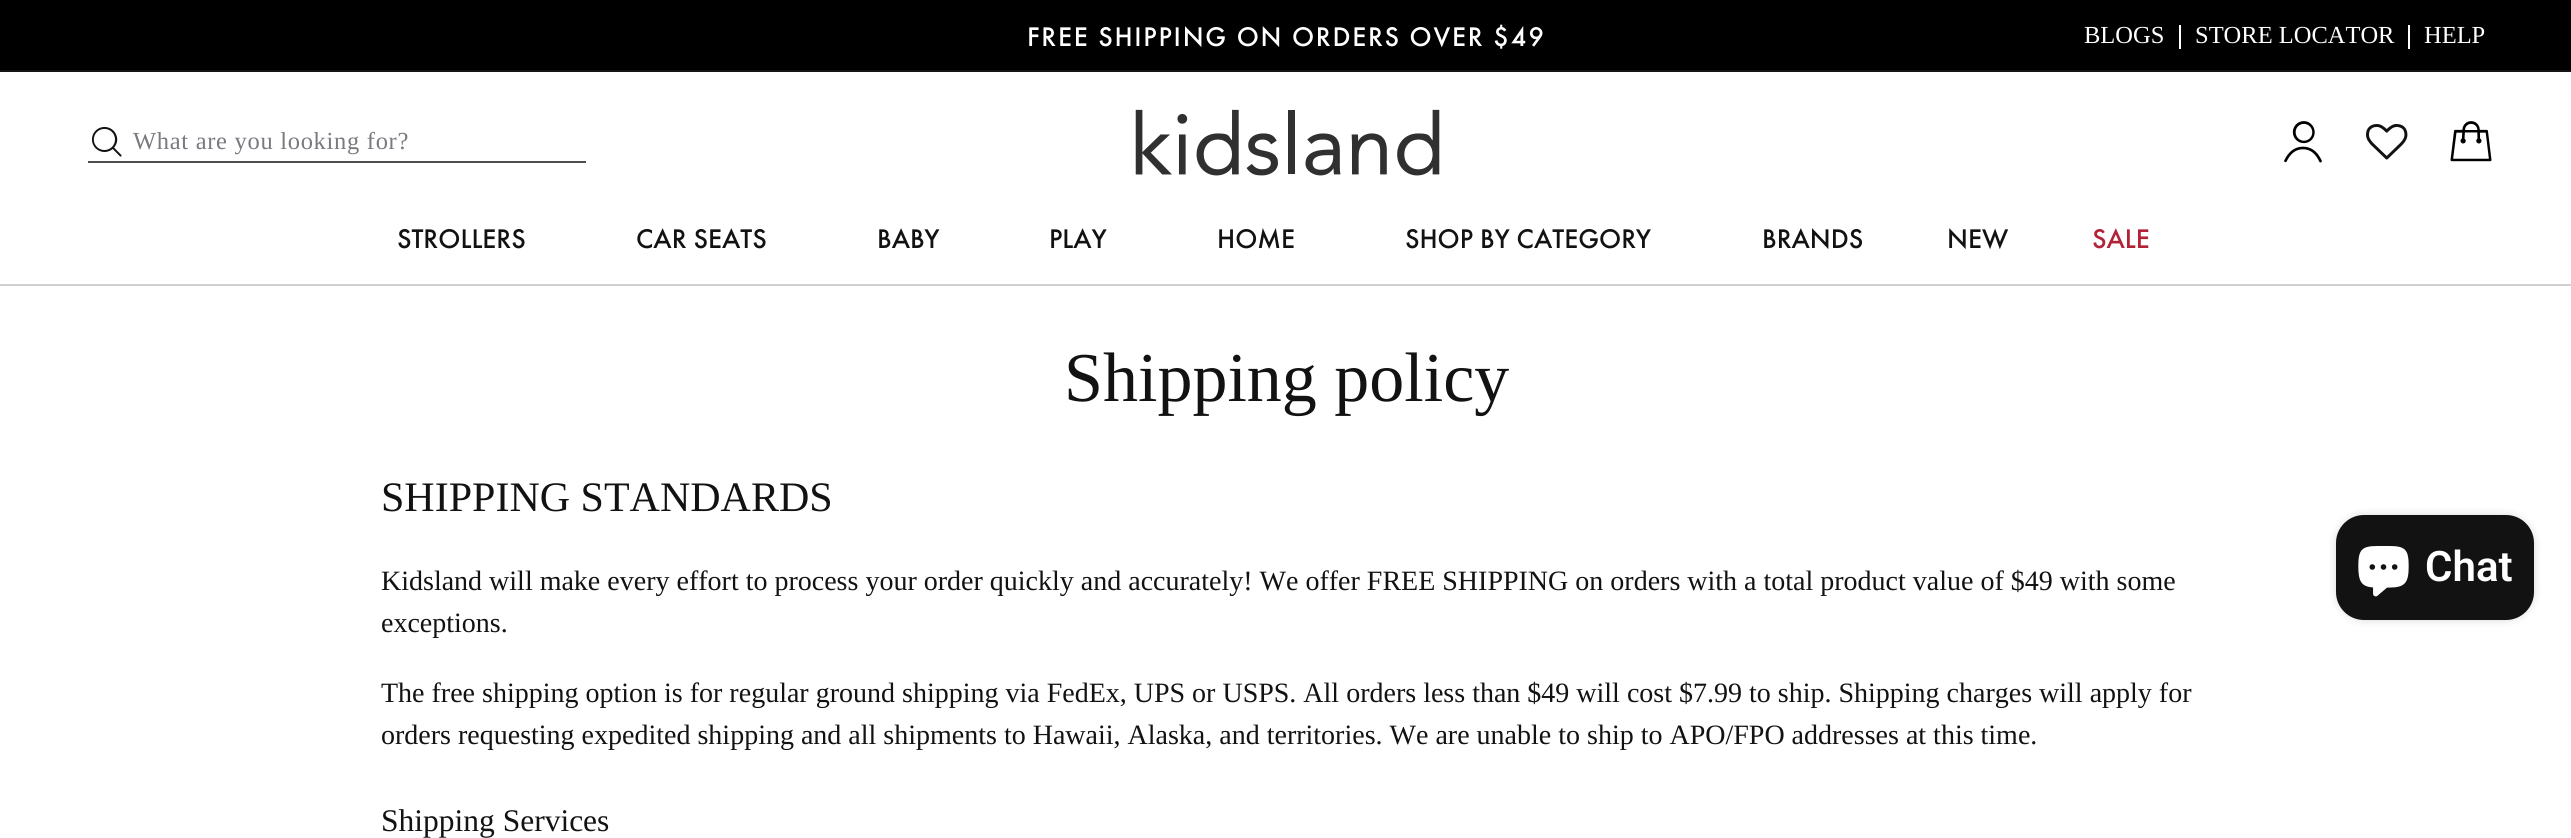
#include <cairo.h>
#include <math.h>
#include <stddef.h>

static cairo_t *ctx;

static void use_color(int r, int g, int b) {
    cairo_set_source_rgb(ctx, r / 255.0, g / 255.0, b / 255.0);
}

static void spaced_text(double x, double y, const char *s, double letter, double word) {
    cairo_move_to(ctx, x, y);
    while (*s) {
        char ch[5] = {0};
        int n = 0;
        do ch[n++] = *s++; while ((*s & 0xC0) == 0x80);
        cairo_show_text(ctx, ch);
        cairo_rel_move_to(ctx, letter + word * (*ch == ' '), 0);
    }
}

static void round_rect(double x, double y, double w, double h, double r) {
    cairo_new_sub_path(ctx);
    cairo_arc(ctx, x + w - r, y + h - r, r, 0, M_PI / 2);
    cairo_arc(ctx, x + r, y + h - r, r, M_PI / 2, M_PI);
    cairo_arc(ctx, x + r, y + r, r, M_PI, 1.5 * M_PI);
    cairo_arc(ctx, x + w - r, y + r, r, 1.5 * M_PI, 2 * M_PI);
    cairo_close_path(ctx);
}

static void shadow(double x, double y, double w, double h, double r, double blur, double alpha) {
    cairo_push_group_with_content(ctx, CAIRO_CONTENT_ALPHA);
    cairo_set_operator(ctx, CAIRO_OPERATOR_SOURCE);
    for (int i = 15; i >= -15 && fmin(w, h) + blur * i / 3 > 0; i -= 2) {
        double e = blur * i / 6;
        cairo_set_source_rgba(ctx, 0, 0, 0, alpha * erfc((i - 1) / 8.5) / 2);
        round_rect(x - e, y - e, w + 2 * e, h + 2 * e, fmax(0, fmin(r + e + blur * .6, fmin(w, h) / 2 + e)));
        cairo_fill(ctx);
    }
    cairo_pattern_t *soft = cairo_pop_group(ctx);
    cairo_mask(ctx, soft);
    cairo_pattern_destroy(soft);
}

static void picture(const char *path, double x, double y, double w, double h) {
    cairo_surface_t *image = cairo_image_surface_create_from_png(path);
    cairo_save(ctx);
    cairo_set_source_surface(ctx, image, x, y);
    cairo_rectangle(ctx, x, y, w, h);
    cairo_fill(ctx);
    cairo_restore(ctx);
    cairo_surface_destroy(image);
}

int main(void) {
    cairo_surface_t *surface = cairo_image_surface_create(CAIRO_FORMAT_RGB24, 2571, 838);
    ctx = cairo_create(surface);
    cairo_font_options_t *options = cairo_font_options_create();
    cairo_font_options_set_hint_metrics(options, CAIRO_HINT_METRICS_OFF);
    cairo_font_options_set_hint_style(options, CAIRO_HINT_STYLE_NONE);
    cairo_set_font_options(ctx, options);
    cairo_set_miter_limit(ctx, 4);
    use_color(255, 255, 255);
    cairo_paint(ctx);
    use_color(0, 0, 0);
    cairo_rectangle(ctx, 0, 0, 2571, 70);
    cairo_fill(ctx);
    use_color(20, 20, 20);
    cairo_rectangle(ctx, 0, 70, 2571, 2);
    cairo_fill(ctx);
    cairo_select_font_face(ctx, "Futura Medium", CAIRO_FONT_SLANT_NORMAL, CAIRO_FONT_WEIGHT_NORMAL);
    cairo_set_font_size(ctx, 28);
    use_color(255, 255, 255);
    spaced_text(1027, 46, "FREE SHIPPING ON ORDERS OVER $49", 1.75, 0);
    cairo_rectangle(ctx, 2179, 25, 2, 24);
    cairo_fill(ctx);
    cairo_select_font_face(ctx, "Liberation Serif", CAIRO_FONT_SLANT_NORMAL, CAIRO_FONT_WEIGHT_NORMAL);
    cairo_set_font_size(ctx, 24.5);
    cairo_move_to(ctx, 2084, 43);
    cairo_show_text(ctx, "BLOGS");
    cairo_rectangle(ctx, 2408, 25, 2, 24);
    cairo_fill(ctx);
    cairo_move_to(ctx, 2195, 43);
    cairo_show_text(ctx, "STORE LOCATOR");
    cairo_move_to(ctx, 2424, 43);
    cairo_show_text(ctx, "HELP");
    use_color(77, 77, 77);
    cairo_rectangle(ctx, 88, 161, 498, 2);
    cairo_fill(ctx);
    picture("img1.png", 91, 126, 31, 31);
    use_color(120, 122, 128);
    spaced_text(133, 149, "What are you looking for?", 0.7, 0);
    picture("img2.png", 1135, 109, 305, 67);
    picture("img3.png", 2284, 121, 38, 42);
    picture("img4.png", 2366, 124, 42, 36);
    picture("img5.png", 2450, 121, 42, 41);
    cairo_select_font_face(ctx, "Futura Medium", CAIRO_FONT_SLANT_NORMAL, CAIRO_FONT_WEIGHT_NORMAL);
    cairo_set_font_size(ctx, 28);
    use_color(18, 18, 18);
    cairo_move_to(ctx, 397, 248);
    cairo_show_text(ctx, "STROLLERS");
    cairo_move_to(ctx, 636, 248);
    cairo_show_text(ctx, "CAR SEATS");
    cairo_move_to(ctx, 877, 248);
    cairo_show_text(ctx, "BABY");
    cairo_move_to(ctx, 1049, 248);
    cairo_show_text(ctx, "PLAY");
    cairo_move_to(ctx, 1217, 248);
    cairo_show_text(ctx, "HOME");
    cairo_move_to(ctx, 1405, 248);
    cairo_show_text(ctx, "SHOP BY CATEGORY");
    cairo_move_to(ctx, 1762, 248);
    cairo_show_text(ctx, "BRANDS");
    cairo_move_to(ctx, 1947, 248);
    cairo_show_text(ctx, "NEW");
    use_color(178, 35, 56);
    cairo_move_to(ctx, 2092, 248);
    cairo_show_text(ctx, "SALE");
    use_color(208, 208, 208);
    cairo_rectangle(ctx, 0, 284, 2571, 2);
    cairo_fill(ctx);
    cairo_select_font_face(ctx, "Liberation Serif", CAIRO_FONT_SLANT_NORMAL, CAIRO_FONT_WEIGHT_NORMAL);
    cairo_set_font_size(ctx, 70);
    use_color(18, 18, 18);
    cairo_move_to(ctx, 1064, 401);
    cairo_show_text(ctx, "Shipping policy");
    cairo_set_font_size(ctx, 42);
    cairo_move_to(ctx, 381, 511);
    cairo_show_text(ctx, "SHIPPING STANDARDS");
    cairo_set_font_size(ctx, 28);
    cairo_move_to(ctx, 381, 590);
    cairo_show_text(ctx, "Kidsland will make every effort to process your order quickly and accurately! We offer FREE SHIPPING on orders with a total product value of $49 with some");
    cairo_move_to(ctx, 381, 632);
    cairo_show_text(ctx, "exceptions.");
    cairo_move_to(ctx, 381, 702);
    cairo_show_text(ctx, "The free shipping option is for regular ground shipping via FedEx, UPS or USPS. All orders less than $49 will cost $7.99 to ship. Shipping charges will apply for");
    cairo_move_to(ctx, 381, 744);
    cairo_show_text(ctx, "orders requesting expedited shipping and all shipments to Hawaii, Alaska, and territories. We are unable to ship to APO/FPO addresses at this time.");
    cairo_set_font_size(ctx, 31.5);
    cairo_move_to(ctx, 381, 831);
    cairo_show_text(ctx, "Shipping Services");
    use_color(0, 0, 0);
    shadow(2336, 515, 198, 105, 28, 4.5, 0.15);
    use_color(18, 18, 18);
    round_rect(2336, 515, 198, 105, 28);
    cairo_fill(ctx);
    picture("img6.png", 2358, 546, 51, 51);
    cairo_select_font_face(ctx, "Roboto SemiBold", CAIRO_FONT_SLANT_NORMAL, CAIRO_FONT_WEIGHT_NORMAL);
    cairo_set_font_size(ctx, 42);
    use_color(255, 255, 255);
    cairo_move_to(ctx, 2425, 581);
    cairo_show_text(ctx, "Chat");
    cairo_surface_write_to_png(surface, "result.png");
    cairo_font_options_destroy(options);
    cairo_destroy(ctx);
    cairo_surface_destroy(surface);
    return 0;
}
